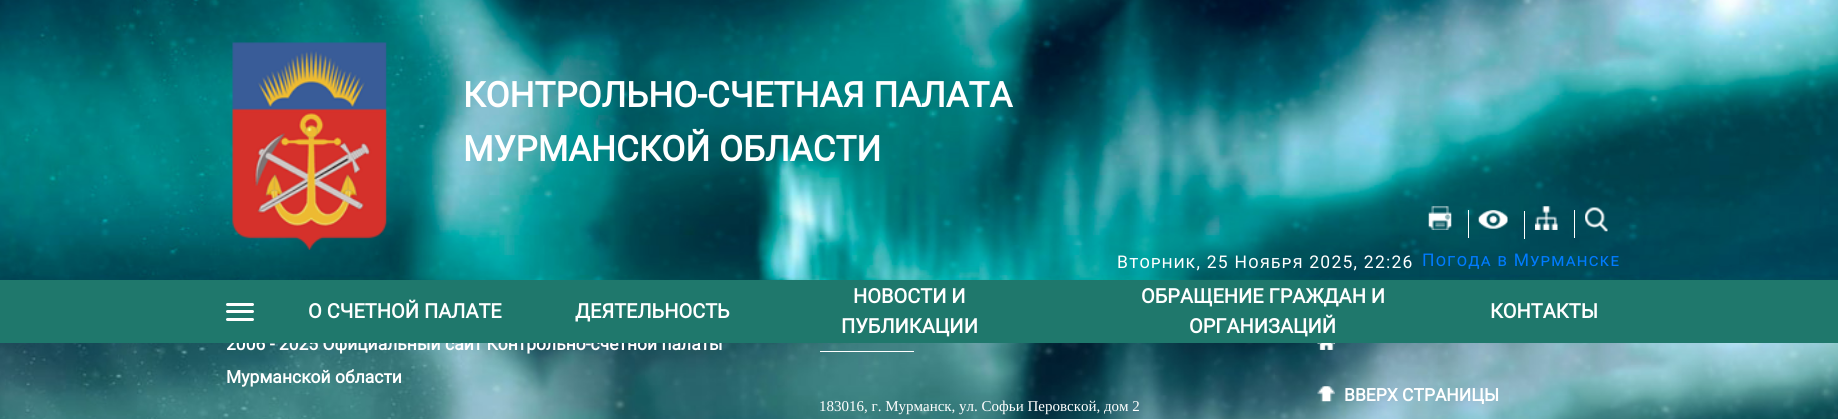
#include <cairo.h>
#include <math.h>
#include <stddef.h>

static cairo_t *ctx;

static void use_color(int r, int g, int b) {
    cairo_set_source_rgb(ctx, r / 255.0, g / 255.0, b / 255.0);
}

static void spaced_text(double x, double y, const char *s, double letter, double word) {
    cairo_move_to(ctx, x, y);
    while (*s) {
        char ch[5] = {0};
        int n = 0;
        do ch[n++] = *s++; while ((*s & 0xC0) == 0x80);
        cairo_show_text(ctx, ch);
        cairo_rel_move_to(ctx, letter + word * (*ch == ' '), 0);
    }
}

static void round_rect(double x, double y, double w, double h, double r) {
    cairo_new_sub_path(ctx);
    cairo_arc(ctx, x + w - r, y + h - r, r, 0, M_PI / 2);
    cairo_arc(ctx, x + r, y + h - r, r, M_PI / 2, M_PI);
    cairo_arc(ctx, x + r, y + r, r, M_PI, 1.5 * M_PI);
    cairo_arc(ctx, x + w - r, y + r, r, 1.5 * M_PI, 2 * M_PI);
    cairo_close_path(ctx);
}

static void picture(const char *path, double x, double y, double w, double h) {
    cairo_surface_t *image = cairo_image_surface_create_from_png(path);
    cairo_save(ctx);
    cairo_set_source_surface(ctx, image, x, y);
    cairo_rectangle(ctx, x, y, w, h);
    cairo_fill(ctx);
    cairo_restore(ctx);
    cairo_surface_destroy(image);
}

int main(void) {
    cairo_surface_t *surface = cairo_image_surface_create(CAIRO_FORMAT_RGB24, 1838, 419);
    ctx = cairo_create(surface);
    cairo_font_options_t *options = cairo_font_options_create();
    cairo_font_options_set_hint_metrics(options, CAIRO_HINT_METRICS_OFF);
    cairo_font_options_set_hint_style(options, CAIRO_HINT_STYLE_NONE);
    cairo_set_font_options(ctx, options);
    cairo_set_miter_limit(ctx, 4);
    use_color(255, 255, 255);
    cairo_paint(ctx);
    picture("img1.png", 0, 0, 1838, 280);
    picture("img2.png", 232, 42, 155, 208);
    cairo_select_font_face(ctx, "Roboto", CAIRO_FONT_SLANT_NORMAL, CAIRO_FONT_WEIGHT_BOLD);
    cairo_set_font_size(ctx, 35);
    use_color(255, 255, 255);
    cairo_move_to(ctx, 463, 107);
    cairo_show_text(ctx, "КОНТРОЛЬНО-СЧЕТНАЯ ПАЛАТА");
    cairo_move_to(ctx, 463, 161);
    cairo_show_text(ctx, "МУРМАНСКОЙ ОБЛАСТИ");
    picture("img3.png", 1428, 206, 24, 24);
    cairo_rectangle(ctx, 1468, 210, 1, 28);
    cairo_fill(ctx);
    picture("img4.png", 1478, 210, 30, 19);
    cairo_rectangle(ctx, 1524, 211, 1, 28);
    cairo_fill(ctx);
    picture("img5.png", 1535, 206, 23, 24);
    cairo_rectangle(ctx, 1574, 210, 1, 28);
    cairo_fill(ctx);
    picture("img6.png", 1585, 207, 23, 25);
    cairo_select_font_face(ctx, "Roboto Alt", CAIRO_FONT_SLANT_NORMAL, CAIRO_FONT_WEIGHT_NORMAL);
    cairo_set_font_size(ctx, 17.5);
    spaced_text(1117, 268, "Вторник, 25 Ноября 2025, 22:26", 1.25, 0);
    use_color(0, 123, 255);
    spaced_text(1422, 266, "Погода в Мурманске", 1.25, 0);
    picture("img7.png", 0, 343, 1838, 76);
    cairo_select_font_face(ctx, "Roboto", CAIRO_FONT_SLANT_NORMAL, CAIRO_FONT_WEIGHT_BOLD);
    use_color(255, 255, 255);
    cairo_move_to(ctx, 226, 350);
    cairo_show_text(ctx, "2006 - 2025 Официальный сайт Контрольно-счетной палаты");
    use_color(31, 120, 108);
    cairo_rectangle(ctx, 0, 280, 1838, 63);
    cairo_fill(ctx);
    use_color(255, 255, 255);
    round_rect(226, 303, 28, 3, 1.5);
    cairo_fill(ctx);
    round_rect(226, 310, 28, 3, 1.5);
    cairo_fill(ctx);
    round_rect(226, 318, 28, 3, 1.5);
    cairo_fill(ctx);
    cairo_set_font_size(ctx, 20);
    cairo_move_to(ctx, 308, 318);
    cairo_show_text(ctx, "О СЧЕТНОЙ ПАЛАТЕ");
    cairo_move_to(ctx, 575, 318);
    cairo_show_text(ctx, "ДЕЯТЕЛЬНОСТЬ");
    cairo_move_to(ctx, 853, 303);
    cairo_show_text(ctx, "НОВОСТИ И");
    cairo_move_to(ctx, 841, 333);
    cairo_show_text(ctx, "ПУБЛИКАЦИИ");
    cairo_move_to(ctx, 1141, 303);
    cairo_show_text(ctx, "ОБРАЩЕНИЕ ГРАЖДАН И");
    cairo_move_to(ctx, 1189, 333);
    cairo_show_text(ctx, "ОРГАНИЗАЦИЙ");
    cairo_move_to(ctx, 1490, 318);
    cairo_show_text(ctx, "КОНТАКТЫ");
    cairo_set_font_size(ctx, 17.5);
    cairo_move_to(ctx, 226, 383);
    cairo_show_text(ctx, "Мурманской области");
    picture("img8.png", 1317, 343, 18, 7);
    picture("img9.png", 1317, 386, 18, 16);
    cairo_move_to(ctx, 1344, 401);
    cairo_show_text(ctx, "ВВЕРХ СТРАНИЦЫ");
    cairo_rectangle(ctx, 820, 351, 94, 1);
    cairo_fill(ctx);
    cairo_select_font_face(ctx, "Liberation Serif", CAIRO_FONT_SLANT_NORMAL, CAIRO_FONT_WEIGHT_NORMAL);
    cairo_set_font_size(ctx, 15);
    cairo_move_to(ctx, 819, 411);
    cairo_show_text(ctx, "183016, г. Мурманск, ул. Софьи Перовской, дом 2");
    cairo_surface_write_to_png(surface, "result.png");
    cairo_font_options_destroy(options);
    cairo_destroy(ctx);
    cairo_surface_destroy(surface);
    return 0;
}
